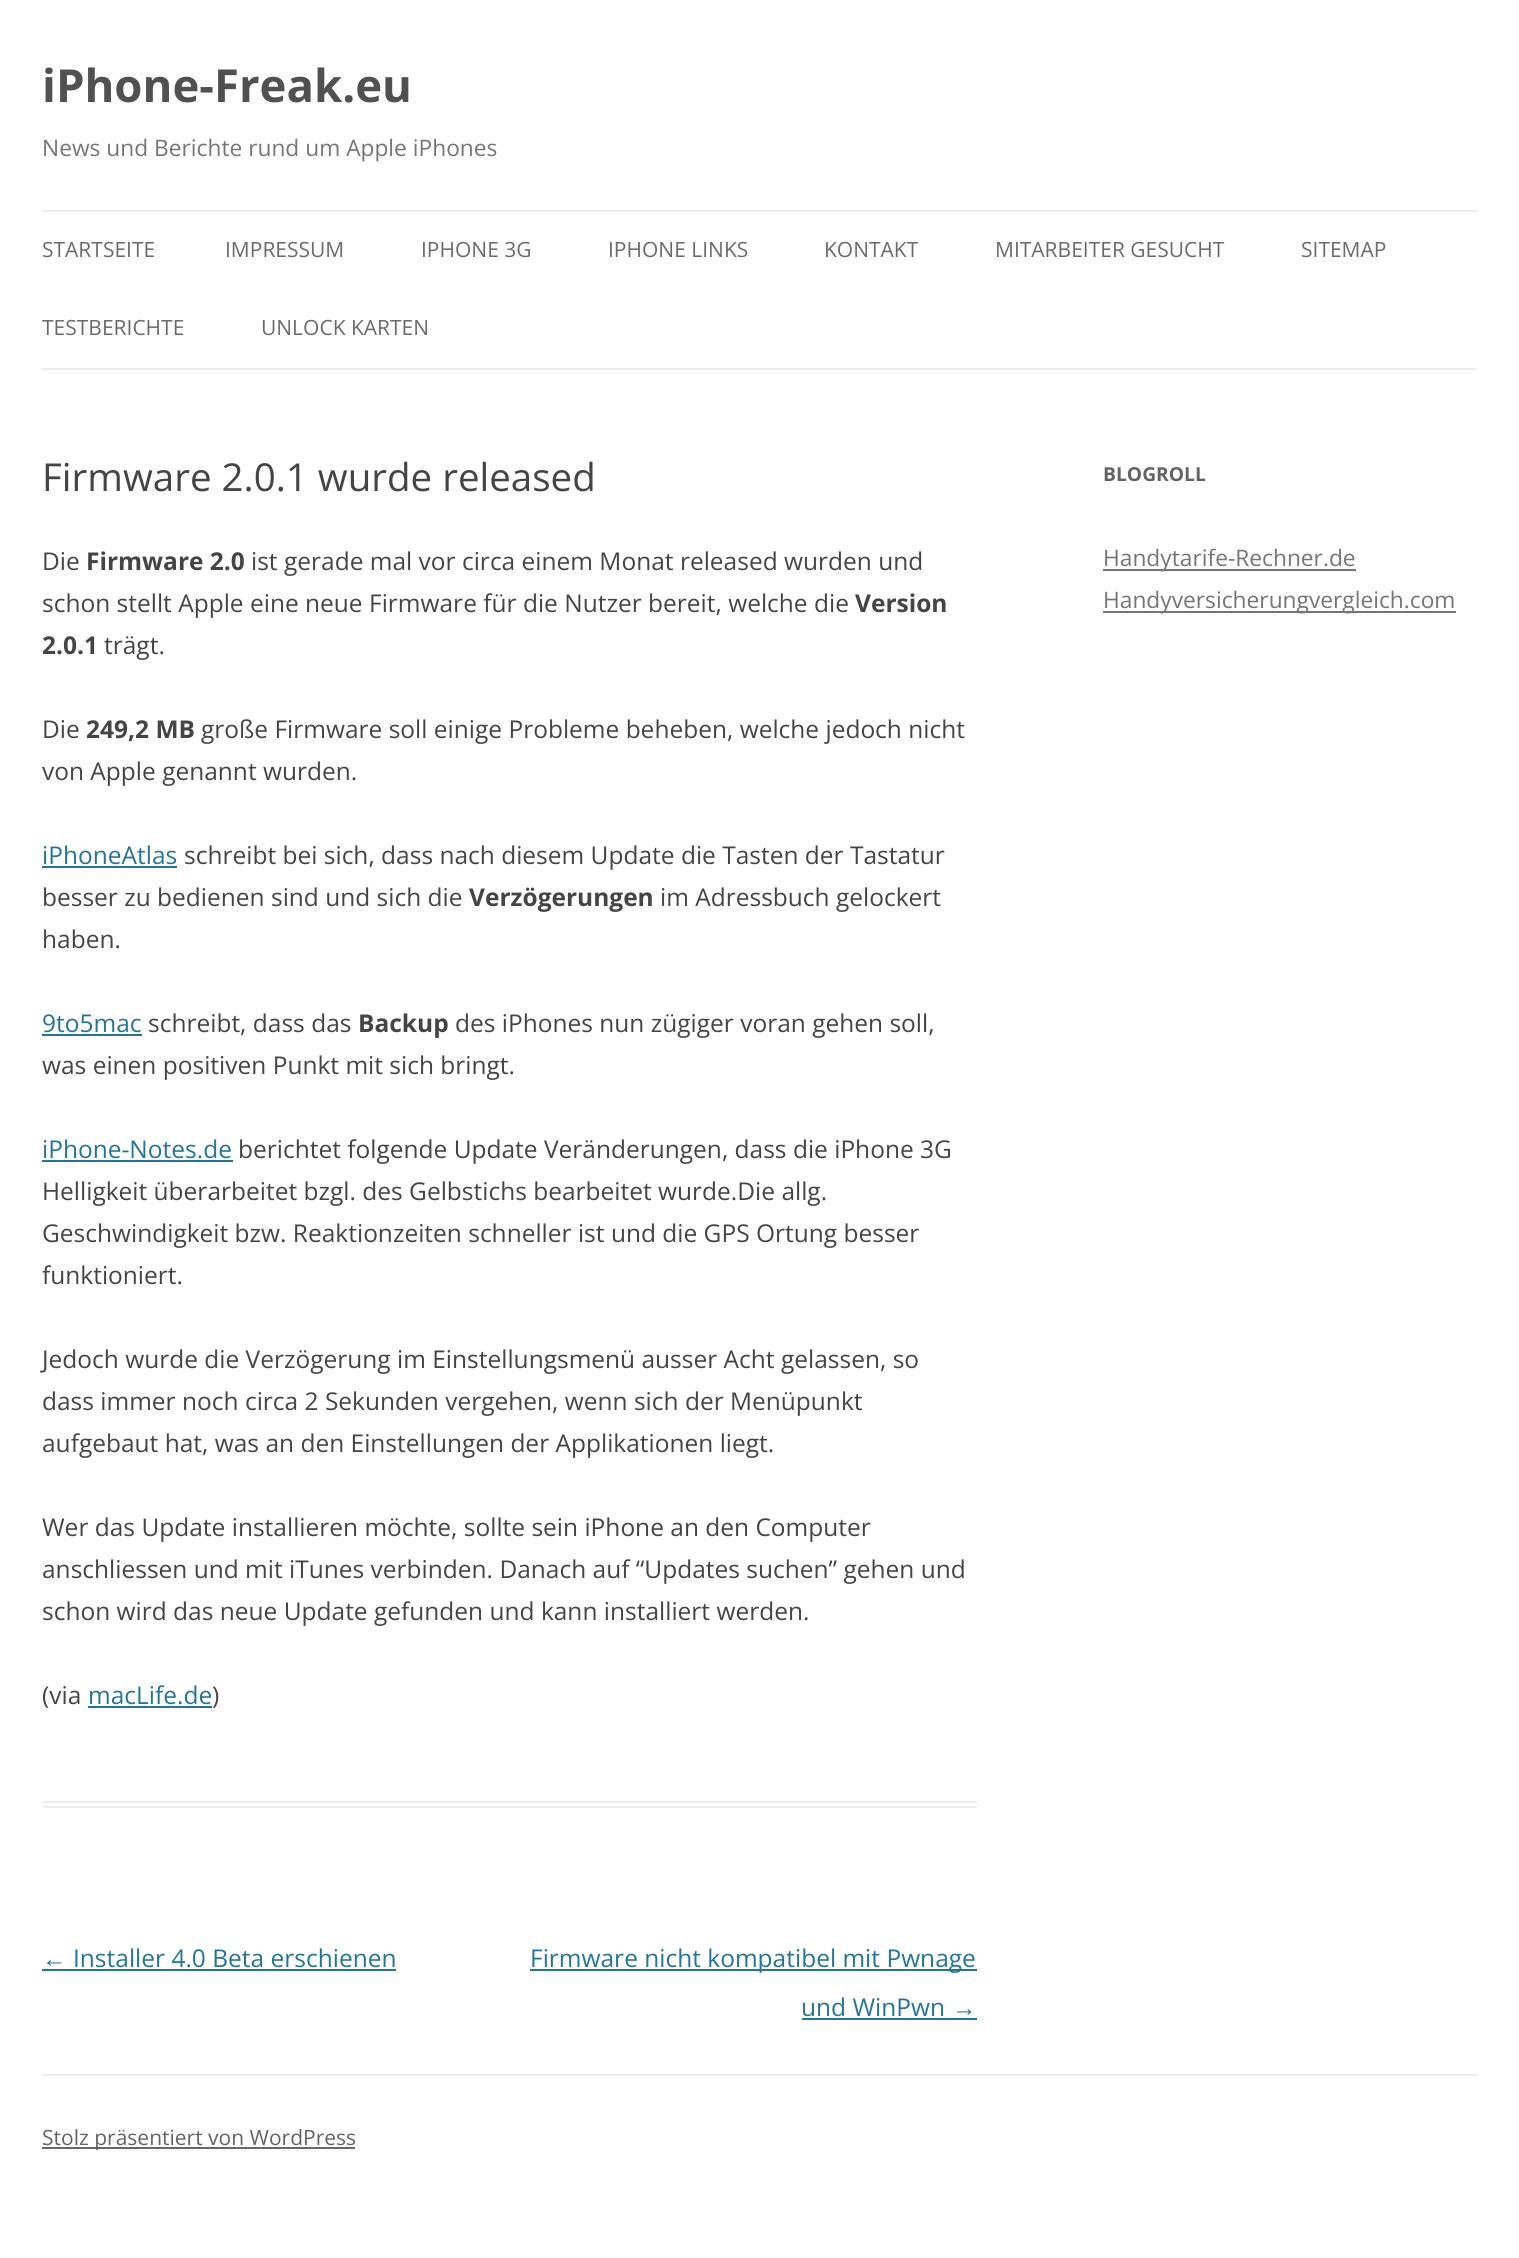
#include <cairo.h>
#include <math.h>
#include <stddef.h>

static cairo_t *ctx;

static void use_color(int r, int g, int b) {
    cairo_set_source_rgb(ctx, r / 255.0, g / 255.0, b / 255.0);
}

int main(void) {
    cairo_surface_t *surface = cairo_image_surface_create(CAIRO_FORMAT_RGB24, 1519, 2258);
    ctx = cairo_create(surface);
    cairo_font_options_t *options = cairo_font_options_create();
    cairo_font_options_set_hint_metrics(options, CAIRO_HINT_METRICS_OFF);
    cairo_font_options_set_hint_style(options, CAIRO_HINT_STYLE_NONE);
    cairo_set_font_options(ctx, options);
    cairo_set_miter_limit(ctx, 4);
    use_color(255, 255, 255);
    cairo_paint(ctx);
    cairo_select_font_face(ctx, "Open Sans", CAIRO_FONT_SLANT_NORMAL, CAIRO_FONT_WEIGHT_BOLD);
    cairo_set_font_size(ctx, 45.5);
    use_color(81, 81, 81);
    cairo_move_to(ctx, 42, 102);
    cairo_show_text(ctx, "iPhone-Freak.eu");
    cairo_select_font_face(ctx, "Open Sans", CAIRO_FONT_SLANT_NORMAL, CAIRO_FONT_WEIGHT_NORMAL);
    cairo_set_font_size(ctx, 22.75);
    use_color(117, 117, 117);
    cairo_move_to(ctx, 42, 156);
    cairo_show_text(ctx, "News und Berichte rund um Apple iPhones");
    use_color(237, 237, 237);
    cairo_rectangle(ctx, 42, 210, 1435, 2);
    cairo_fill(ctx);
    cairo_rectangle(ctx, 42, 368, 1435, 2);
    cairo_fill(ctx);
    cairo_set_font_size(ctx, 21);
    use_color(106, 106, 106);
    cairo_move_to(ctx, 42, 257);
    cairo_show_text(ctx, "STARTSEITE");
    cairo_move_to(ctx, 225, 257);
    cairo_show_text(ctx, "IMPRESSUM");
    cairo_move_to(ctx, 421, 257);
    cairo_show_text(ctx, "IPHONE 3G");
    cairo_move_to(ctx, 608, 257);
    cairo_show_text(ctx, "IPHONE LINKS");
    cairo_move_to(ctx, 824, 257);
    cairo_show_text(ctx, "KONTAKT");
    cairo_move_to(ctx, 995, 257);
    cairo_show_text(ctx, "MITARBEITER GESUCHT");
    cairo_move_to(ctx, 1301, 257);
    cairo_show_text(ctx, "SITEMAP");
    cairo_move_to(ctx, 42, 335);
    cairo_show_text(ctx, "TESTBERICHTE");
    cairo_move_to(ctx, 261, 335);
    cairo_show_text(ctx, "UNLOCK KARTEN");
    use_color(237, 237, 237);
    cairo_rectangle(ctx, 42, 1801, 935, 2);
    cairo_fill(ctx);
    cairo_rectangle(ctx, 42, 1806, 935, 2);
    cairo_fill(ctx);
    cairo_set_font_size(ctx, 38.5);
    use_color(68, 68, 68);
    cairo_move_to(ctx, 42, 491);
    cairo_show_text(ctx, "Firmware 2.0.1 wurde released");
    cairo_set_font_size(ctx, 24.5);
    cairo_move_to(ctx, 42, 570);
    cairo_show_text(ctx, "Die");
    cairo_select_font_face(ctx, "Open Sans", CAIRO_FONT_SLANT_NORMAL, CAIRO_FONT_WEIGHT_BOLD);
    cairo_move_to(ctx, 86, 570);
    cairo_show_text(ctx, "Firmware 2.0");
    cairo_select_font_face(ctx, "Open Sans", CAIRO_FONT_SLANT_NORMAL, CAIRO_FONT_WEIGHT_NORMAL);
    cairo_move_to(ctx, 251, 570);
    cairo_show_text(ctx, "ist gerade mal vor circa einem Monat released wurden und");
    cairo_move_to(ctx, 42, 612);
    cairo_show_text(ctx, "schon stellt Apple eine neue Firmware für die Nutzer bereit, welche die");
    cairo_select_font_face(ctx, "Open Sans", CAIRO_FONT_SLANT_NORMAL, CAIRO_FONT_WEIGHT_BOLD);
    cairo_move_to(ctx, 855, 612);
    cairo_show_text(ctx, "Version");
    cairo_move_to(ctx, 42, 654);
    cairo_show_text(ctx, "2.0.1");
    cairo_select_font_face(ctx, "Open Sans", CAIRO_FONT_SLANT_NORMAL, CAIRO_FONT_WEIGHT_NORMAL);
    cairo_move_to(ctx, 104, 654);
    cairo_show_text(ctx, "trägt.");
    cairo_move_to(ctx, 42, 738);
    cairo_show_text(ctx, "Die");
    cairo_select_font_face(ctx, "Open Sans", CAIRO_FONT_SLANT_NORMAL, CAIRO_FONT_WEIGHT_BOLD);
    cairo_move_to(ctx, 86, 738);
    cairo_show_text(ctx, "249,2 MB");
    cairo_select_font_face(ctx, "Open Sans", CAIRO_FONT_SLANT_NORMAL, CAIRO_FONT_WEIGHT_NORMAL);
    cairo_move_to(ctx, 201, 738);
    cairo_show_text(ctx, "große Firmware soll einige Probleme beheben, welche jedoch nicht");
    cairo_move_to(ctx, 42, 780);
    cairo_show_text(ctx, "von Apple genannt wurden.");
    use_color(33, 117, 155);
    cairo_move_to(ctx, 42, 864);
    cairo_show_text(ctx, "iPhoneAtlas");
    cairo_rectangle(ctx, 42, 866, 135, 2);
    cairo_fill(ctx);
    use_color(68, 68, 68);
    cairo_move_to(ctx, 184, 864);
    cairo_show_text(ctx, "schreibt bei sich, dass nach diesem Update die Tasten der Tastatur");
    cairo_move_to(ctx, 42, 906);
    cairo_show_text(ctx, "besser zu bedienen sind und sich die");
    cairo_select_font_face(ctx, "Open Sans", CAIRO_FONT_SLANT_NORMAL, CAIRO_FONT_WEIGHT_BOLD);
    cairo_move_to(ctx, 469, 906);
    cairo_show_text(ctx, "Verzögerungen");
    cairo_select_font_face(ctx, "Open Sans", CAIRO_FONT_SLANT_NORMAL, CAIRO_FONT_WEIGHT_NORMAL);
    cairo_move_to(ctx, 660, 906);
    cairo_show_text(ctx, "im Adressbuch gelockert");
    cairo_move_to(ctx, 42, 948);
    cairo_show_text(ctx, "haben.");
    use_color(33, 117, 155);
    cairo_move_to(ctx, 42, 1032);
    cairo_show_text(ctx, "9to5mac");
    cairo_rectangle(ctx, 42, 1034, 100, 2);
    cairo_fill(ctx);
    use_color(68, 68, 68);
    cairo_move_to(ctx, 148, 1032);
    cairo_show_text(ctx, "schreibt, dass das");
    cairo_select_font_face(ctx, "Open Sans", CAIRO_FONT_SLANT_NORMAL, CAIRO_FONT_WEIGHT_BOLD);
    cairo_move_to(ctx, 358, 1032);
    cairo_show_text(ctx, "Backup");
    cairo_select_font_face(ctx, "Open Sans", CAIRO_FONT_SLANT_NORMAL, CAIRO_FONT_WEIGHT_NORMAL);
    cairo_move_to(ctx, 455, 1032);
    cairo_show_text(ctx, "des iPhones nun zügiger voran gehen soll,");
    cairo_move_to(ctx, 42, 1074);
    cairo_show_text(ctx, "was einen positiven Punkt mit sich bringt.");
    use_color(33, 117, 155);
    cairo_move_to(ctx, 42, 1158);
    cairo_show_text(ctx, "iPhone-Notes.de");
    cairo_rectangle(ctx, 42, 1160, 191, 2);
    cairo_fill(ctx);
    use_color(68, 68, 68);
    cairo_move_to(ctx, 238, 1158);
    cairo_show_text(ctx, "berichtet folgende Update Veränderungen, dass die iPhone 3G");
    cairo_move_to(ctx, 42, 1200);
    cairo_show_text(ctx, "Helligkeit überarbeitet bzgl. des Gelbstichs bearbeitet wurde.Die allg.");
    cairo_move_to(ctx, 42, 1242);
    cairo_show_text(ctx, "Geschwindigkeit bzw. Reaktionzeiten schneller ist und die GPS Ortung besser");
    cairo_move_to(ctx, 42, 1284);
    cairo_show_text(ctx, "funktioniert.");
    cairo_move_to(ctx, 42, 1368);
    cairo_show_text(ctx, "Jedoch wurde die Verzögerung im Einstellungsmenü ausser Acht gelassen, so");
    cairo_move_to(ctx, 42, 1410);
    cairo_show_text(ctx, "dass immer noch circa 2 Sekunden vergehen, wenn sich der Menüpunkt");
    cairo_move_to(ctx, 42, 1452);
    cairo_show_text(ctx, "aufgebaut hat, was an den Einstellungen der Applikationen liegt.");
    cairo_move_to(ctx, 42, 1536);
    cairo_show_text(ctx, "Wer das Update installieren möchte, sollte sein iPhone an den Computer");
    cairo_move_to(ctx, 42, 1578);
    cairo_show_text(ctx, "anschliessen und mit iTunes verbinden. Danach auf “Updates suchen” gehen und");
    cairo_move_to(ctx, 42, 1620);
    cairo_show_text(ctx, "schon wird das neue Update gefunden und kann installiert werden.");
    cairo_move_to(ctx, 42, 1704);
    cairo_show_text(ctx, "(via");
    use_color(33, 117, 155);
    cairo_move_to(ctx, 88, 1704);
    cairo_show_text(ctx, "macLife.de");
    cairo_rectangle(ctx, 88, 1706, 124, 2);
    cairo_fill(ctx);
    use_color(68, 68, 68);
    cairo_move_to(ctx, 212, 1704);
    cairo_show_text(ctx, ")");
    cairo_select_font_face(ctx, "Liberation Sans", CAIRO_FONT_SLANT_NORMAL, CAIRO_FONT_WEIGHT_NORMAL);
    use_color(33, 117, 155);
    cairo_move_to(ctx, 42, 1967);
    cairo_show_text(ctx, "←");
    cairo_rectangle(ctx, 42, 1969, 354, 2);
    cairo_fill(ctx);
    cairo_select_font_face(ctx, "Open Sans", CAIRO_FONT_SLANT_NORMAL, CAIRO_FONT_WEIGHT_NORMAL);
    cairo_move_to(ctx, 73, 1967);
    cairo_show_text(ctx, "Installer 4.0 Beta erschienen");
    cairo_rectangle(ctx, 530, 1969, 447, 2);
    cairo_fill(ctx);
    cairo_move_to(ctx, 530, 1967);
    cairo_show_text(ctx, "Firmware nicht kompatibel mit Pwnage");
    cairo_move_to(ctx, 801, 2016);
    cairo_show_text(ctx, "und WinPwn");
    cairo_select_font_face(ctx, "Liberation Sans", CAIRO_FONT_SLANT_NORMAL, CAIRO_FONT_WEIGHT_NORMAL);
    cairo_move_to(ctx, 952, 2016);
    cairo_show_text(ctx, "→");
    cairo_rectangle(ctx, 802, 2018, 175, 2);
    cairo_fill(ctx);
    cairo_select_font_face(ctx, "Open Sans", CAIRO_FONT_SLANT_NORMAL, CAIRO_FONT_WEIGHT_BOLD);
    cairo_set_font_size(ctx, 19.25);
    use_color(99, 99, 99);
    cairo_move_to(ctx, 1103, 481);
    cairo_show_text(ctx, "BLOGROLL");
    use_color(117, 117, 117);
    cairo_rectangle(ctx, 1103, 569, 253, 2);
    cairo_fill(ctx);
    cairo_select_font_face(ctx, "Open Sans", CAIRO_FONT_SLANT_NORMAL, CAIRO_FONT_WEIGHT_NORMAL);
    cairo_set_font_size(ctx, 22.75);
    cairo_move_to(ctx, 1103, 566);
    cairo_show_text(ctx, "Handytarife-Rechner.de");
    cairo_rectangle(ctx, 1103, 611, 353, 2);
    cairo_fill(ctx);
    cairo_move_to(ctx, 1103, 608);
    cairo_show_text(ctx, "Handyversicherungvergleich.com");
    use_color(237, 237, 237);
    cairo_rectangle(ctx, 42, 2074, 1435, 2);
    cairo_fill(ctx);
    use_color(104, 104, 104);
    cairo_rectangle(ctx, 42, 2147, 313, 2);
    cairo_fill(ctx);
    cairo_set_font_size(ctx, 21);
    use_color(99, 99, 99);
    cairo_move_to(ctx, 42, 2145);
    cairo_show_text(ctx, "Stolz präsentiert von WordPress");
    cairo_surface_write_to_png(surface, "result.png");
    cairo_font_options_destroy(options);
    cairo_destroy(ctx);
    cairo_surface_destroy(surface);
    return 0;
}
